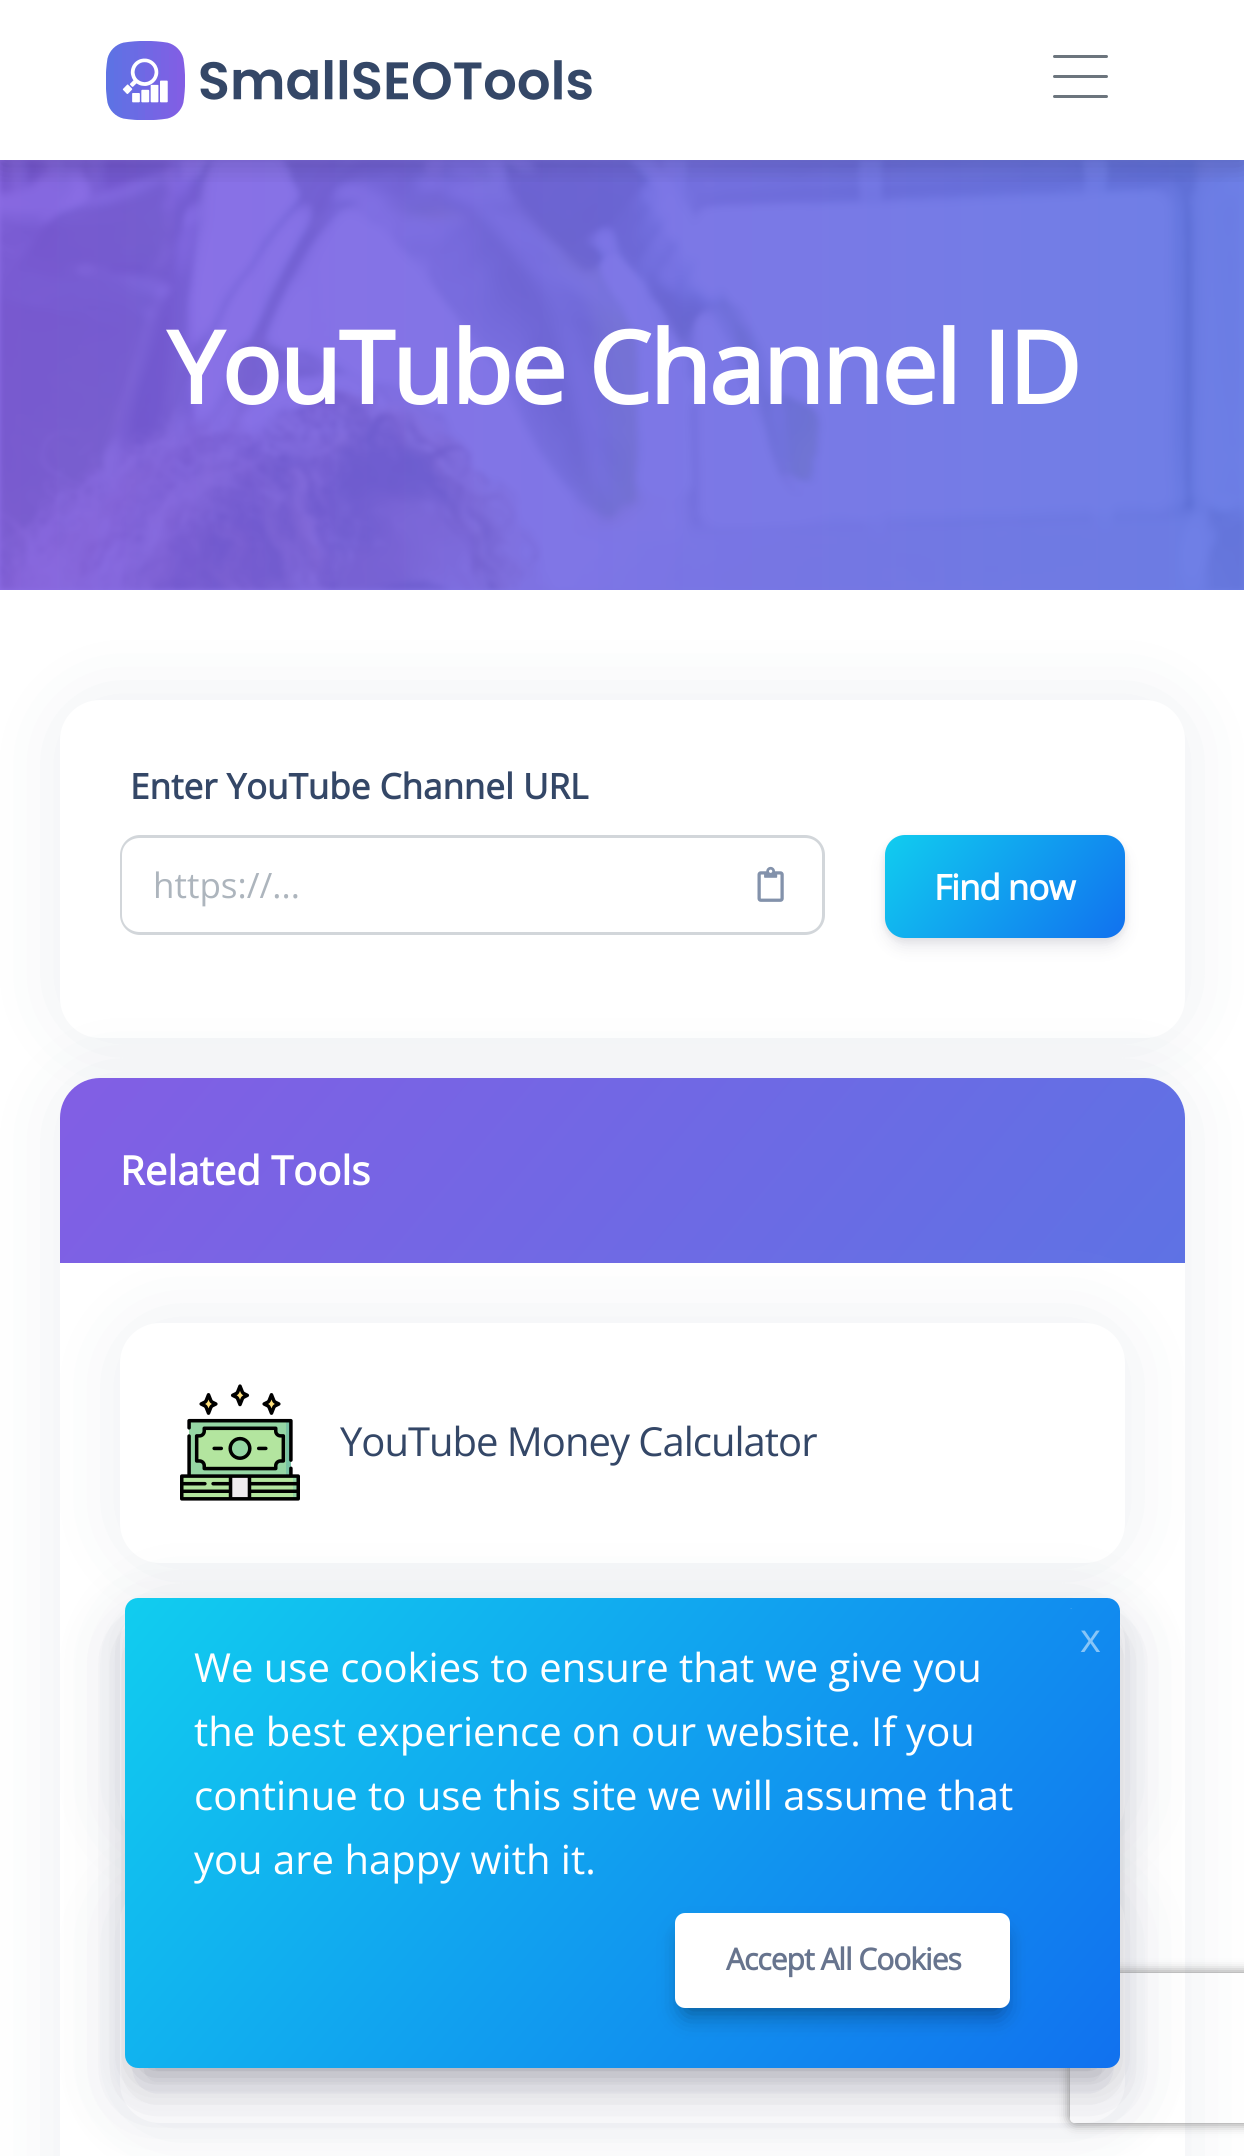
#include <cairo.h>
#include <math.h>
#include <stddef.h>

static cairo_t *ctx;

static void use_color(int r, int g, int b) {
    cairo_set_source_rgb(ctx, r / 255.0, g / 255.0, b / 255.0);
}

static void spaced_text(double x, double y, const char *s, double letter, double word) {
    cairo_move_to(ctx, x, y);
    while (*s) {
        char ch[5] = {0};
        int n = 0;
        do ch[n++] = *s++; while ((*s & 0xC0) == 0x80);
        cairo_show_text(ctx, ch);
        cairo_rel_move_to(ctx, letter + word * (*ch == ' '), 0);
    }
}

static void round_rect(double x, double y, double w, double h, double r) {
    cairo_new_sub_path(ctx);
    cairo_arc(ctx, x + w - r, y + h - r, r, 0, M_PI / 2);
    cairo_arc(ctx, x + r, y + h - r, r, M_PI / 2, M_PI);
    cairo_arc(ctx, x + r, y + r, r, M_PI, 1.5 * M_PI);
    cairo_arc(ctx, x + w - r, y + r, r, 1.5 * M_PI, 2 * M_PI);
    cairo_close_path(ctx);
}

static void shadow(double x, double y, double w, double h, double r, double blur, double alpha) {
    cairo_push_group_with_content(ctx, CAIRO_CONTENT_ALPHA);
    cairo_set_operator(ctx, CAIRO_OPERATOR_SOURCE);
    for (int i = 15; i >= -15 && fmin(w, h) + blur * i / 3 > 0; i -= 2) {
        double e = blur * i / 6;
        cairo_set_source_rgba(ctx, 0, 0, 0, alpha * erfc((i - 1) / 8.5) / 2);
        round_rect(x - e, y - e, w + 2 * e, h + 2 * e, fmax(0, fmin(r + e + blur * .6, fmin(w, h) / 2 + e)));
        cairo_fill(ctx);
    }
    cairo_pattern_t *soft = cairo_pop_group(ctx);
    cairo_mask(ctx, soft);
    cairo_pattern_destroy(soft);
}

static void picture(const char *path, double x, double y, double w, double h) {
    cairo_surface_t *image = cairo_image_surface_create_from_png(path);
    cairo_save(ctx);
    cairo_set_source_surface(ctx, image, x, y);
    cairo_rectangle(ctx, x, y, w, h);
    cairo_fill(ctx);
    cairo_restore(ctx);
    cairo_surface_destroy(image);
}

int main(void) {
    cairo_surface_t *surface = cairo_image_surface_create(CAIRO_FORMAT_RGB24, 1244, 2156);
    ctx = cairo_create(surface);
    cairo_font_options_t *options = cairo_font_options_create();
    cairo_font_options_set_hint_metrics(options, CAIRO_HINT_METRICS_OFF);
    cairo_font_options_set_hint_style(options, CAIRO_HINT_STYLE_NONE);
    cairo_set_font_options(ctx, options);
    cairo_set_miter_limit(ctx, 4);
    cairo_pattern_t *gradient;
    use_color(255, 255, 255);
    cairo_paint(ctx);
    use_color(233, 236, 239);
    cairo_rectangle(ctx, 0, 160, 1244, 430);
    cairo_fill(ctx);
    picture("img2.png", 0, 160, 1244, 430);
    use_color(136, 152, 170);
    shadow(60, 700, 1125, 338, 40, 40, 0.15);
    gradient = cairo_pattern_create_linear(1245, 375, 0, 375);
    cairo_pattern_add_color_stop_rgba(gradient, 0, 0.369, 0.447, 0.894, 0.9);
    cairo_pattern_add_color_stop_rgba(gradient, 1, 0.51, 0.369, 0.894, 0.9);
    cairo_set_source(ctx, gradient);
    cairo_pattern_destroy(gradient);
    cairo_rectangle(ctx, 0, 160, 1244, 430);
    cairo_fill(ctx);
    cairo_save(ctx);
    cairo_rectangle(ctx, 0, 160, 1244, 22);
    cairo_clip(ctx);
    use_color(0, 0, 0);
    shadow(0, 5, 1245, 160, 0, 15, 0.16);
    cairo_restore(ctx);
    picture("img1.png", 106, 41, 486, 79);
    use_color(108, 117, 125);
    round_rect(1053, 55, 55, 3, 1.5);
    cairo_fill(ctx);
    round_rect(1053, 75, 55, 3, 1.5);
    cairo_fill(ctx);
    round_rect(1053, 95, 55, 3, 1.5);
    cairo_fill(ctx);
    cairo_select_font_face(ctx, "Open Sans", CAIRO_FONT_SLANT_NORMAL, CAIRO_FONT_WEIGHT_BOLD);
    cairo_set_font_size(ctx, 100);
    use_color(255, 255, 255);
    spaced_text(167, 404, "YouTube Channel ID", -2, 0);
    round_rect(60, 700, 1125, 338, 40);
    cairo_fill(ctx);
    cairo_set_font_size(ctx, 35);
    use_color(52, 71, 103);
    cairo_move_to(ctx, 130, 799);
    cairo_show_text(ctx, "Enter YouTube Channel URL");
    use_color(210, 214, 218);
    cairo_set_fill_rule(ctx, CAIRO_FILL_RULE_EVEN_ODD);
    cairo_new_path(ctx);
    cairo_move_to(ctx, 718, 835);
    cairo_line_to(ctx, 805, 835);
    cairo_curve_to(ctx, 816, 835, 825, 844, 825, 855);
    cairo_line_to(ctx, 825, 915);
    cairo_curve_to(ctx, 825, 926, 816, 935, 805, 935);
    cairo_line_to(ctx, 718, 935);
    cairo_close_path(ctx);
    cairo_move_to(ctx, 718, 838);
    cairo_line_to(ctx, 805, 838);
    cairo_curve_to(ctx, 815, 838, 822, 845, 822, 855);
    cairo_line_to(ctx, 822, 915);
    cairo_curve_to(ctx, 822, 925, 815, 932, 805, 932);
    cairo_line_to(ctx, 718, 932);
    cairo_close_path(ctx);
    cairo_fill(ctx);
    use_color(255, 255, 255);
    cairo_new_path(ctx);
    cairo_move_to(ctx, 141, 838);
    cairo_line_to(ctx, 720, 838);
    cairo_line_to(ctx, 720, 933);
    cairo_line_to(ctx, 141, 933);
    cairo_curve_to(ctx, 131, 933, 123, 925, 123, 915);
    cairo_line_to(ctx, 123, 856);
    cairo_curve_to(ctx, 123, 846, 131, 838, 141, 838);
    cairo_close_path(ctx);
    cairo_fill(ctx);
    use_color(210, 214, 218);
    cairo_new_path(ctx);
    cairo_move_to(ctx, 140, 835);
    cairo_line_to(ctx, 720, 835);
    cairo_line_to(ctx, 720, 935);
    cairo_line_to(ctx, 140, 935);
    cairo_curve_to(ctx, 129, 935, 120, 926, 120, 915);
    cairo_line_to(ctx, 120, 855);
    cairo_curve_to(ctx, 120, 844, 129, 835, 140, 835);
    cairo_close_path(ctx);
    cairo_move_to(ctx, 140, 838);
    cairo_line_to(ctx, 720, 838);
    cairo_line_to(ctx, 720, 932);
    cairo_line_to(ctx, 140, 932);
    cairo_curve_to(ctx, 130, 932, 122, 925, 122, 915);
    cairo_line_to(ctx, 122, 855);
    cairo_curve_to(ctx, 122, 845, 130, 838, 140, 838);
    cairo_close_path(ctx);
    cairo_fill(ctx);
    cairo_select_font_face(ctx, "Open Sans", CAIRO_FONT_SLANT_NORMAL, CAIRO_FONT_WEIGHT_NORMAL);
    use_color(173, 181, 189);
    cairo_move_to(ctx, 153, 898);
    cairo_show_text(ctx, "https://...");
    picture("img3.png", 757, 866, 27, 36);
    use_color(0, 0, 0);
    shadow(885, 838, 240, 102, 20, 4, 0.08);
    use_color(50, 50, 93);
    shadow(885, 845, 240, 103, 20, 7.5, 0.1);
    gradient = cairo_pattern_create_linear(1101, 967, 909, 806);
    cairo_pattern_add_color_stop_rgba(gradient, 0, 0.067, 0.443, 0.937, 1);
    cairo_pattern_add_color_stop_rgba(gradient, 1, 0.067, 0.804, 0.937, 1);
    cairo_set_source(ctx, gradient);
    cairo_pattern_destroy(gradient);
    round_rect(885, 835, 240, 103, 20);
    cairo_fill(ctx);
    cairo_select_font_face(ctx, "Open Sans", CAIRO_FONT_SLANT_NORMAL, CAIRO_FONT_WEIGHT_BOLD);
    use_color(255, 255, 255);
    spaced_text(934, 900, "Find now", -1, 0);
    use_color(136, 152, 170);
    shadow(60, 1078, 1125, 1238, 40, 40, 0.15);
    use_color(255, 255, 255);
    round_rect(60, 1078, 1125, 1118, 40);
    cairo_fill(ctx);
    gradient = cairo_pattern_create_linear(998, 1485, 247, 855);
    cairo_pattern_add_color_stop_rgba(gradient, 0, 0.369, 0.447, 0.894, 1);
    cairo_pattern_add_color_stop_rgba(gradient, 1, 0.51, 0.369, 0.894, 1);
    cairo_set_source(ctx, gradient);
    cairo_pattern_destroy(gradient);
    cairo_new_path(ctx);
    cairo_move_to(ctx, 100, 1078);
    cairo_line_to(ctx, 1145, 1078);
    cairo_curve_to(ctx, 1167, 1078, 1185, 1096, 1185, 1118);
    cairo_line_to(ctx, 1185, 1263);
    cairo_line_to(ctx, 60, 1263);
    cairo_line_to(ctx, 60, 1118);
    cairo_curve_to(ctx, 60, 1096, 78, 1078, 100, 1078);
    cairo_close_path(ctx);
    cairo_fill(ctx);
    cairo_set_font_size(ctx, 40);
    use_color(255, 255, 255);
    cairo_move_to(ctx, 120, 1185);
    cairo_show_text(ctx, "Related Tools");
    use_color(136, 152, 170);
    shadow(120, 1323, 1005, 240, 40, 40, 0.15);
    use_color(255, 255, 255);
    round_rect(120, 1323, 1005, 240, 40);
    cairo_fill(ctx);
    picture("img4.png", 180, 1384, 120, 117);
    cairo_select_font_face(ctx, "Open Sans", CAIRO_FONT_SLANT_NORMAL, CAIRO_FONT_WEIGHT_NORMAL);
    use_color(52, 71, 103);
    spaced_text(340, 1456, "YouTube Money Calculator", -1, 0);
    use_color(136, 152, 170);
    shadow(120, 1603, 1005, 240, 40, 40, 0.15);
    use_color(255, 255, 255);
    round_rect(120, 1603, 1005, 240, 40);
    cairo_fill(ctx);
    use_color(136, 152, 170);
    shadow(120, 1883, 1005, 240, 40, 40, 0.15);
    use_color(255, 255, 255);
    round_rect(120, 1883, 1005, 240, 40);
    cairo_fill(ctx);
    use_color(0, 0, 0);
    shadow(145, 1638, 955, 430, 0, 20, 0.3);
    use_color(50, 50, 93);
    shadow(138, 1643, 970, 445, 0, 34, 0.25);
    cairo_save(ctx);
    cairo_new_path(ctx);
    cairo_move_to(ctx, 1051, 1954);
    cairo_line_to(ctx, 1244, 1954);
    cairo_line_to(ctx, 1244, 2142);
    cairo_line_to(ctx, 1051, 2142);
    cairo_close_path(ctx);
    cairo_move_to(ctx, 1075, 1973);
    cairo_line_to(ctx, 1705, 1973);
    cairo_curve_to(ctx, 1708, 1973, 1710, 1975, 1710, 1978);
    cairo_line_to(ctx, 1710, 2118);
    cairo_curve_to(ctx, 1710, 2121, 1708, 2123, 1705, 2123);
    cairo_line_to(ctx, 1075, 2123);
    cairo_curve_to(ctx, 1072, 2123, 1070, 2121, 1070, 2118);
    cairo_line_to(ctx, 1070, 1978);
    cairo_curve_to(ctx, 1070, 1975, 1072, 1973, 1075, 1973);
    cairo_close_path(ctx);
    cairo_clip(ctx);
    use_color(128, 128, 128);
    shadow(1070, 1973, 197, 150, 5, 6, 1);
    cairo_restore(ctx);
    gradient = cairo_pattern_create_linear(1030, 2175, 215, 1490);
    cairo_pattern_add_color_stop_rgba(gradient, 0, 0.067, 0.443, 0.937, 1);
    cairo_pattern_add_color_stop_rgba(gradient, 1, 0.067, 0.804, 0.937, 1);
    cairo_set_source(ctx, gradient);
    cairo_pattern_destroy(gradient);
    round_rect(125, 1598, 995, 470, 13);
    cairo_fill(ctx);
    picture("img5.png", 1070, 1608, 2, 1);
    use_color(136, 197, 247);
    cairo_move_to(ctx, 1080, 1652);
    cairo_show_text(ctx, "x");
    use_color(255, 255, 255);
    cairo_move_to(ctx, 194, 1682);
    cairo_show_text(ctx, "We use cookies to ensure that we give you");
    cairo_move_to(ctx, 194, 1746);
    cairo_show_text(ctx, "the best experience on our website. If you");
    cairo_move_to(ctx, 194, 1810);
    cairo_show_text(ctx, "continue to use this site we will assume that");
    cairo_move_to(ctx, 194, 1874);
    cairo_show_text(ctx, "you are happy with it.");
    use_color(0, 0, 0);
    shadow(688, 1940, 310, 70, 0, 12.5, 0.25);
    shadow(683, 1933, 320, 80, 2.5, 12.5, 0.23);
    use_color(255, 255, 255);
    round_rect(675, 1913, 335, 95, 10);
    cairo_fill(ctx);
    cairo_select_font_face(ctx, "Open Sans", CAIRO_FONT_SLANT_NORMAL, CAIRO_FONT_WEIGHT_BOLD);
    cairo_set_font_size(ctx, 30);
    use_color(103, 116, 142);
    spaced_text(726, 1970, "Accept All Cookies", -1, 0);
    cairo_surface_write_to_png(surface, "result.png");
    cairo_font_options_destroy(options);
    cairo_destroy(ctx);
    cairo_surface_destroy(surface);
    return 0;
}
